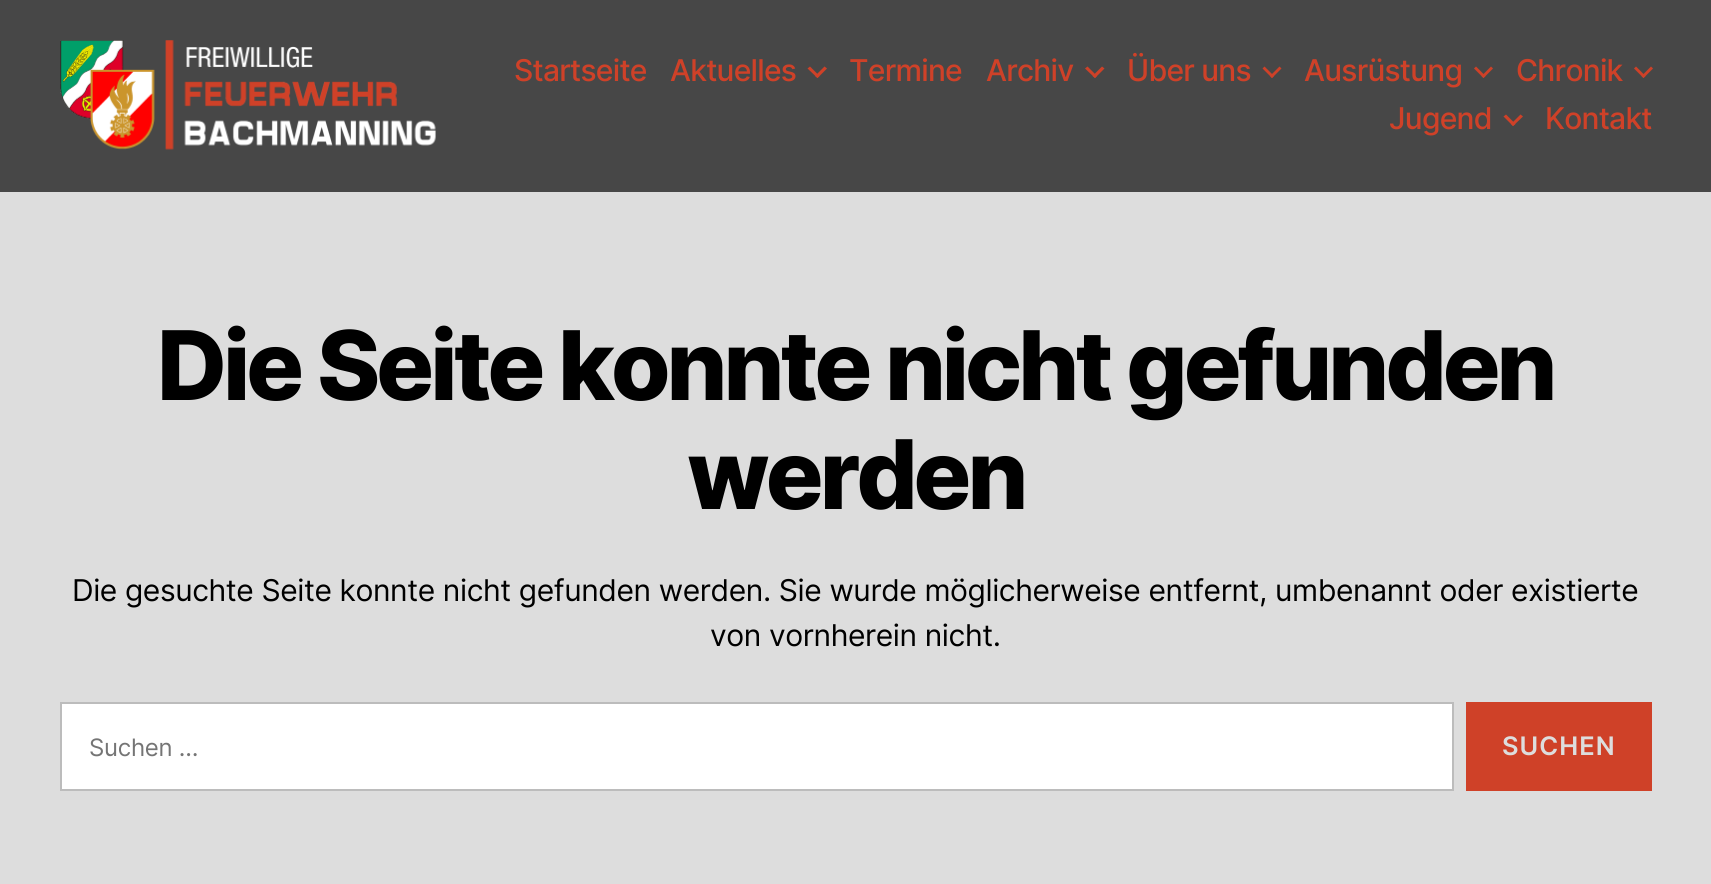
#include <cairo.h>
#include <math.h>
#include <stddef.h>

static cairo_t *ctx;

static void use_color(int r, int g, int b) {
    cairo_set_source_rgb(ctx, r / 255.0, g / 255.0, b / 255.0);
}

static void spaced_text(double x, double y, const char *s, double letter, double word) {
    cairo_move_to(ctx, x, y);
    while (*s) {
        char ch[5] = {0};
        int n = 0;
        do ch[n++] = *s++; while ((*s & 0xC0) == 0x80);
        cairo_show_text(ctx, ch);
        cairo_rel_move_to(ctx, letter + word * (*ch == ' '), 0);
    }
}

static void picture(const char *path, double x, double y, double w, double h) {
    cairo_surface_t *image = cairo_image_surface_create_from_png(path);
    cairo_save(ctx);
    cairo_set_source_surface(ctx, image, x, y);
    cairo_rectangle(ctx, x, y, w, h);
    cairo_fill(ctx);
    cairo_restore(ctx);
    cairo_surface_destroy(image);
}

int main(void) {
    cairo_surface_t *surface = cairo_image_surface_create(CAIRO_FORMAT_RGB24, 1711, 884);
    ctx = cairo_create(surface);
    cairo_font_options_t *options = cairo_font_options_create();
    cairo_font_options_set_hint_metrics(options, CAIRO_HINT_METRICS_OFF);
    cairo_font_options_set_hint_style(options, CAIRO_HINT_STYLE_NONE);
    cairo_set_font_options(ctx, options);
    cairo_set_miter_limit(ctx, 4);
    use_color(221, 221, 221);
    cairo_paint(ctx);
    use_color(71, 71, 71);
    cairo_rectangle(ctx, 0, 0, 1711, 192);
    cairo_fill(ctx);
    picture("img1.png", 60, 40, 376, 110);
    cairo_select_font_face(ctx, "Inter Medium", CAIRO_FONT_SLANT_NORMAL, CAIRO_FONT_WEIGHT_NORMAL);
    cairo_set_font_size(ctx, 30);
    use_color(207, 65, 40);
    spaced_text(514, 81, "Startseite", -0.75, 0);
    spaced_text(670, 81, "Aktuelles", -0.75, 0);
    cairo_new_path(ctx);
    cairo_move_to(ctx, 807.5, 68.5);
    cairo_line_to(ctx, 810, 66.5);
    cairo_line_to(ctx, 819.5, 76);
    cairo_line_to(ctx, 817.5, 78);
    cairo_close_path(ctx);
    cairo_fill(ctx);
    cairo_new_path(ctx);
    cairo_move_to(ctx, 815, 76);
    cairo_line_to(ctx, 824.5, 66.5);
    cairo_line_to(ctx, 827, 68.5);
    cairo_line_to(ctx, 817.5, 78);
    cairo_close_path(ctx);
    cairo_fill(ctx);
    spaced_text(849, 81, "Termine", -0.75, 0);
    spaced_text(986, 81, "Archiv", -0.75, 0);
    cairo_new_path(ctx);
    cairo_move_to(ctx, 1085, 68.5);
    cairo_line_to(ctx, 1087.5, 66.5);
    cairo_line_to(ctx, 1097, 76);
    cairo_line_to(ctx, 1095, 78);
    cairo_close_path(ctx);
    cairo_fill(ctx);
    cairo_new_path(ctx);
    cairo_move_to(ctx, 1092.5, 76);
    cairo_line_to(ctx, 1102, 66.5);
    cairo_line_to(ctx, 1104.5, 68.5);
    cairo_line_to(ctx, 1095, 78);
    cairo_close_path(ctx);
    cairo_fill(ctx);
    spaced_text(1127, 81, "Über uns", -0.75, 0);
    cairo_new_path(ctx);
    cairo_move_to(ctx, 1262.5, 68.5);
    cairo_line_to(ctx, 1264.5, 66.5);
    cairo_line_to(ctx, 1274, 76);
    cairo_line_to(ctx, 1272, 78);
    cairo_close_path(ctx);
    cairo_fill(ctx);
    cairo_new_path(ctx);
    cairo_move_to(ctx, 1270, 76);
    cairo_line_to(ctx, 1279.5, 66.5);
    cairo_line_to(ctx, 1281.5, 68.5);
    cairo_line_to(ctx, 1272, 78);
    cairo_close_path(ctx);
    cairo_fill(ctx);
    spaced_text(1304, 81, "Ausrüstung", -0.75, 0);
    cairo_new_path(ctx);
    cairo_move_to(ctx, 1474, 68.5);
    cairo_line_to(ctx, 1476, 66.5);
    cairo_line_to(ctx, 1485.5, 76);
    cairo_line_to(ctx, 1483.5, 78);
    cairo_close_path(ctx);
    cairo_fill(ctx);
    cairo_new_path(ctx);
    cairo_move_to(ctx, 1481.5, 76);
    cairo_line_to(ctx, 1491, 66.5);
    cairo_line_to(ctx, 1493, 68.5);
    cairo_line_to(ctx, 1483.5, 78);
    cairo_close_path(ctx);
    cairo_fill(ctx);
    spaced_text(1516, 81, "Chronik", -0.75, 0);
    cairo_new_path(ctx);
    cairo_move_to(ctx, 1634, 68.5);
    cairo_line_to(ctx, 1636, 66.5);
    cairo_line_to(ctx, 1645.5, 76);
    cairo_line_to(ctx, 1643.5, 78);
    cairo_close_path(ctx);
    cairo_fill(ctx);
    cairo_new_path(ctx);
    cairo_move_to(ctx, 1641.5, 76);
    cairo_line_to(ctx, 1651, 66.5);
    cairo_line_to(ctx, 1653, 68.5);
    cairo_line_to(ctx, 1643.5, 78);
    cairo_close_path(ctx);
    cairo_fill(ctx);
    spaced_text(1389, 129, "Jugend", -0.75, 0);
    cairo_new_path(ctx);
    cairo_move_to(ctx, 1503.5, 116.5);
    cairo_line_to(ctx, 1506, 114.5);
    cairo_line_to(ctx, 1515.5, 124);
    cairo_line_to(ctx, 1513, 126);
    cairo_close_path(ctx);
    cairo_fill(ctx);
    cairo_new_path(ctx);
    cairo_move_to(ctx, 1511, 124);
    cairo_line_to(ctx, 1520.5, 114.5);
    cairo_line_to(ctx, 1523, 116.5);
    cairo_line_to(ctx, 1513, 126);
    cairo_close_path(ctx);
    cairo_fill(ctx);
    spaced_text(1545, 129, "Kontakt", -0.75, 0);
    cairo_select_font_face(ctx, "Inter ExtraBold", CAIRO_FONT_SLANT_NORMAL, CAIRO_FONT_WEIGHT_NORMAL);
    cairo_set_font_size(ctx, 96);
    use_color(0, 0, 0);
    spaced_text(157, 400, "Die Seite konnte nicht gefunden", -4, 0);
    spaced_text(687, 509, "werden", -4, 0);
    cairo_select_font_face(ctx, "Inter", CAIRO_FONT_SLANT_NORMAL, CAIRO_FONT_WEIGHT_NORMAL);
    cairo_set_font_size(ctx, 30);
    spaced_text(72, 601, "Die gesuchte Seite konnte nicht gefunden werden. Sie wurde möglicherweise entfernt, umbenannt oder existierte", -0.41, 0);
    spaced_text(710, 646, "von vornherein nicht.", -0.41, 0);
    use_color(255, 255, 255);
    cairo_rectangle(ctx, 61, 703, 1392, 87);
    cairo_fill_preserve(ctx);
    use_color(188, 188, 188);
    cairo_stroke(ctx);
    cairo_set_font_size(ctx, 24);
    use_color(117, 117, 117);
    spaced_text(89, 756, "Suchen …", -0.25, 0);
    use_color(207, 65, 40);
    cairo_rectangle(ctx, 1466, 702, 186, 89);
    cairo_fill(ctx);
    cairo_select_font_face(ctx, "Inter SemiBold", CAIRO_FONT_SLANT_NORMAL, CAIRO_FONT_WEIGHT_NORMAL);
    cairo_set_font_size(ctx, 25.5);
    use_color(221, 221, 221);
    spaced_text(1502, 755, "SUCHEN", 1, 0);
    cairo_surface_write_to_png(surface, "result.png");
    cairo_font_options_destroy(options);
    cairo_destroy(ctx);
    cairo_surface_destroy(surface);
    return 0;
}
